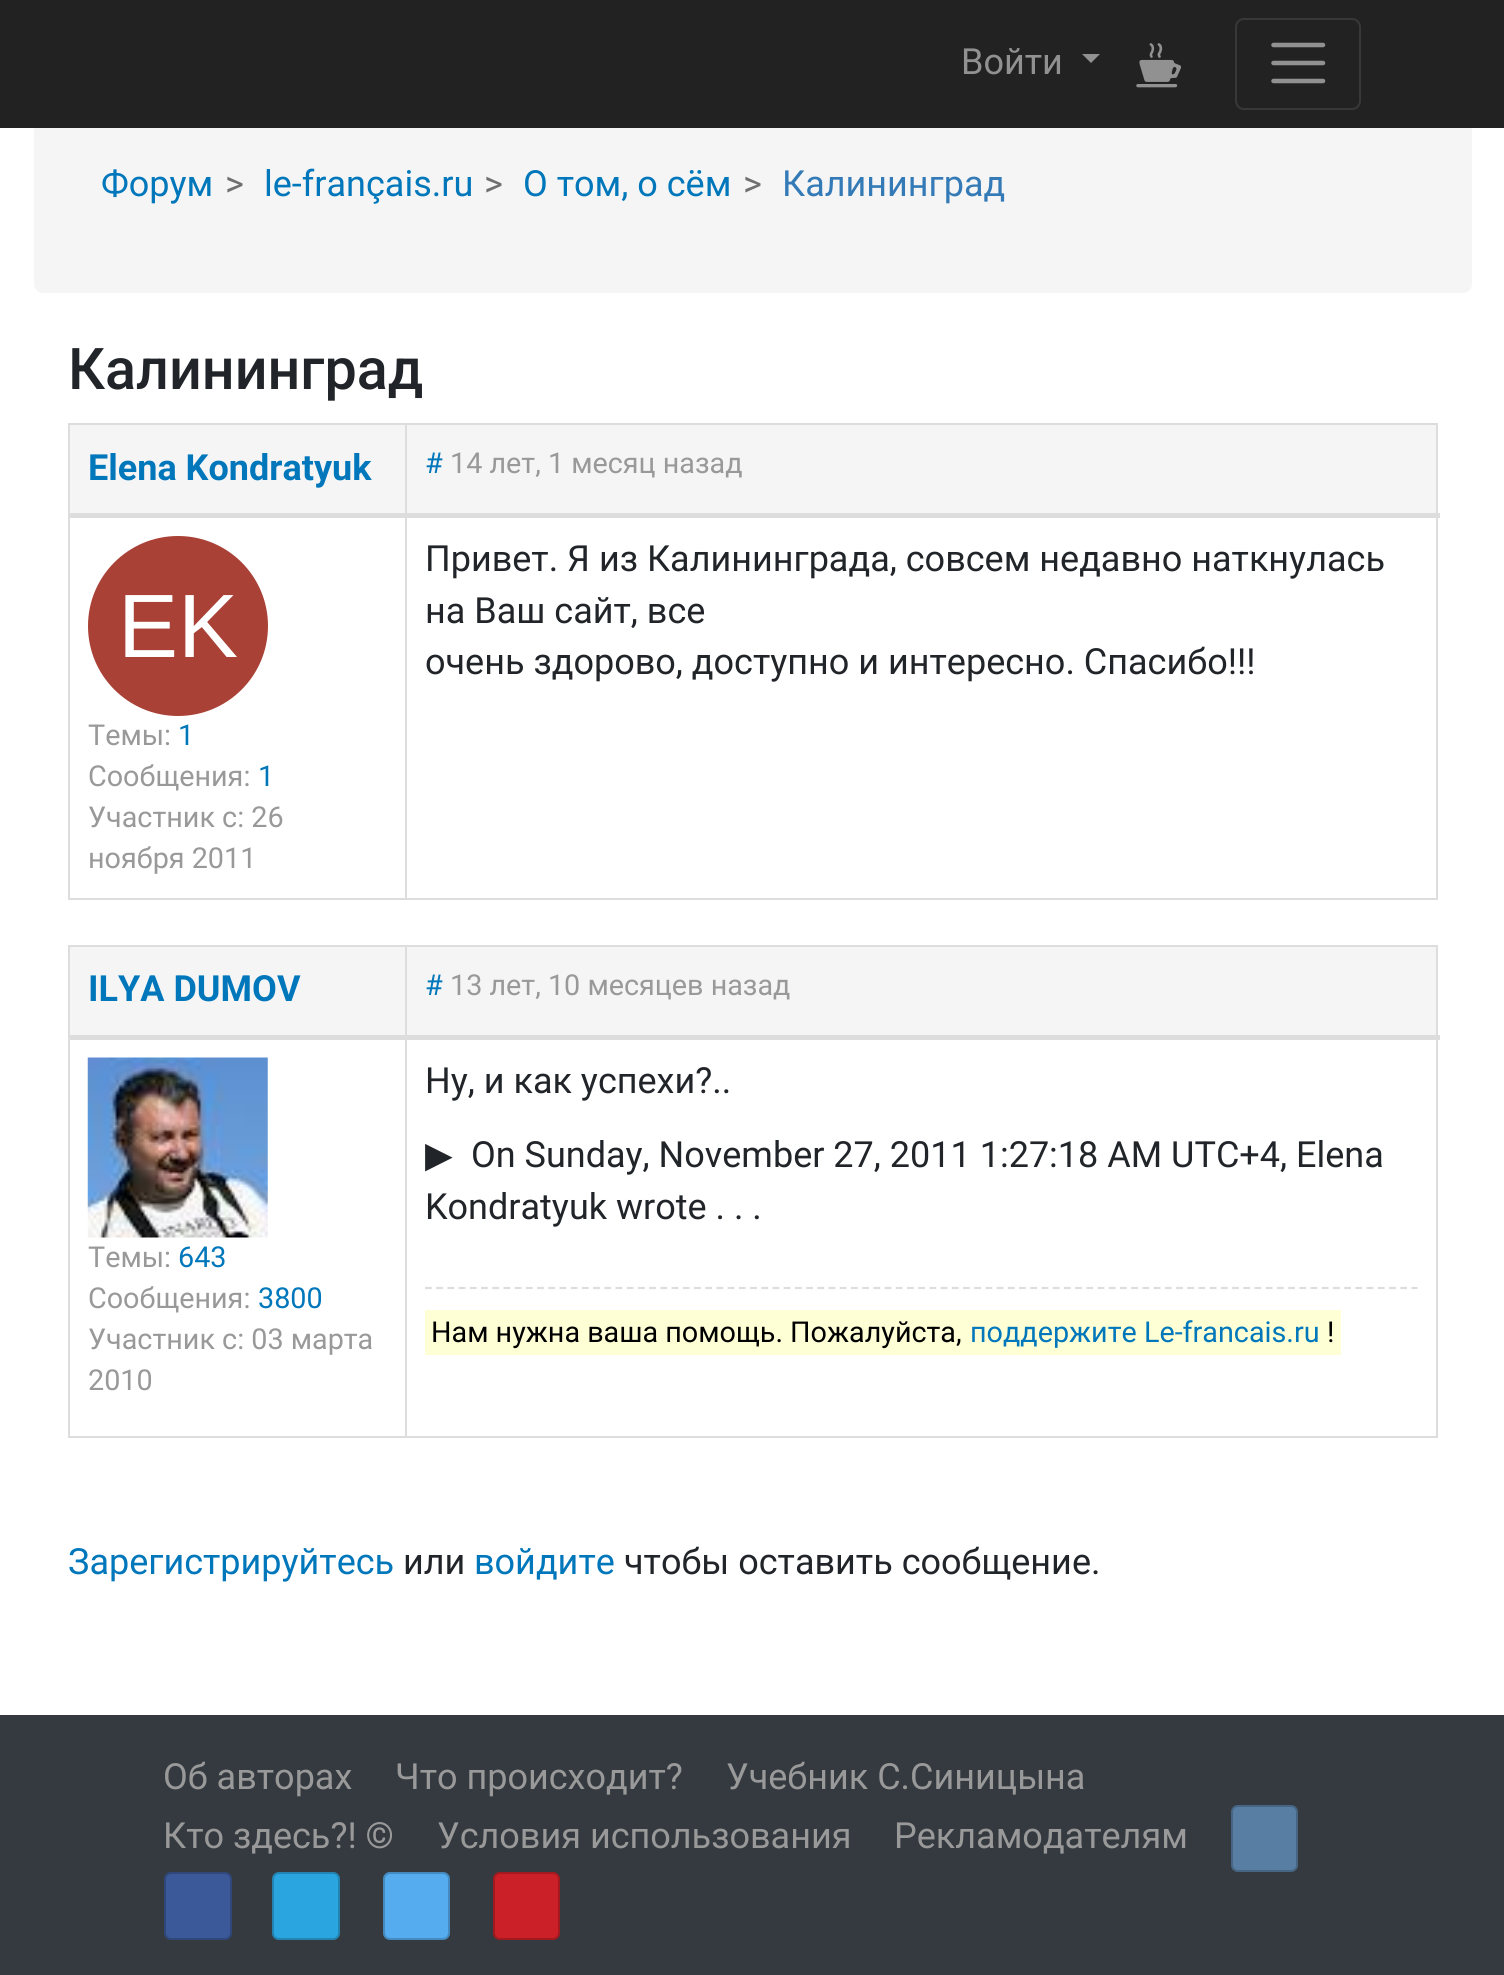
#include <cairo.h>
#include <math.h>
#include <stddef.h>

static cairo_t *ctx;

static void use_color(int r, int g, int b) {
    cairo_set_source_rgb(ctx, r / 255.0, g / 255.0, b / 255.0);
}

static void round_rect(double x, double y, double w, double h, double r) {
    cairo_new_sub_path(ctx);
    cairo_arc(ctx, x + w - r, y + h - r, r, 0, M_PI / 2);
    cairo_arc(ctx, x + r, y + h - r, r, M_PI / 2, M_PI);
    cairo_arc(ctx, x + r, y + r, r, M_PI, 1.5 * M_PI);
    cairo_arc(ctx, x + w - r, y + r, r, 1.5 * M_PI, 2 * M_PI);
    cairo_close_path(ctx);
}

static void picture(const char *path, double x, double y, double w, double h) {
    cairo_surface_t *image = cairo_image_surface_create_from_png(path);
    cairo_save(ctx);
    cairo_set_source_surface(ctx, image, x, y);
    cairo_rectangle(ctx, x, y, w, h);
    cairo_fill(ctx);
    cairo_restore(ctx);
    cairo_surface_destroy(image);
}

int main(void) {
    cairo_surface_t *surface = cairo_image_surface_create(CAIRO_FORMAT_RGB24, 1504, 1975);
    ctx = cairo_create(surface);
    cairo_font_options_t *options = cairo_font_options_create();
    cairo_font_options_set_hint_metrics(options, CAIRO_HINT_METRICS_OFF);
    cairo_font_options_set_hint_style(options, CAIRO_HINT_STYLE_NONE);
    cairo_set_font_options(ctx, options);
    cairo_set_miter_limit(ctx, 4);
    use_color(255, 255, 255);
    cairo_paint(ctx);
    use_color(245, 245, 245);
    round_rect(34, 122, 1438, 171, 9);
    cairo_fill(ctx);
    use_color(34, 34, 34);
    cairo_rectangle(ctx, 0, 0, 1504, 128);
    cairo_fill(ctx);
    cairo_select_font_face(ctx, "Roboto", CAIRO_FONT_SLANT_NORMAL, CAIRO_FONT_WEIGHT_NORMAL);
    cairo_set_font_size(ctx, 36);
    use_color(145, 145, 145);
    cairo_move_to(ctx, 961, 74);
    cairo_show_text(ctx, "Войти");
    cairo_new_path(ctx);
    cairo_move_to(ctx, 1082, 54);
    cairo_line_to(ctx, 1100, 54);
    cairo_line_to(ctx, 1091, 63);
    cairo_close_path(ctx);
    cairo_fill(ctx);
    picture("img1.png", 1136, 43, 45, 45);
    round_rect(1236, 19, 124, 90, 8);
    use_color(56, 56, 56);
    cairo_stroke(ctx);
    cairo_new_path(ctx);
    cairo_move_to(ctx, 1273.5, 45);
    cairo_line_to(ctx, 1323, 45);
    cairo_move_to(ctx, 1273.5, 63);
    cairo_line_to(ctx, 1323, 63);
    cairo_move_to(ctx, 1273.5, 81);
    cairo_line_to(ctx, 1323, 81);
    use_color(145, 145, 145);
    cairo_set_line_width(ctx, 4.5);
    cairo_set_line_cap(ctx, CAIRO_LINE_CAP_ROUND);
    cairo_stroke(ctx);
    use_color(0, 119, 187);
    cairo_move_to(ctx, 101, 196);
    cairo_show_text(ctx, "Форум");
    use_color(112, 112, 112);
    cairo_move_to(ctx, 225, 196);
    cairo_show_text(ctx, ">");
    use_color(0, 119, 187);
    cairo_move_to(ctx, 264, 196);
    cairo_show_text(ctx, "le-français.ru");
    use_color(112, 112, 112);
    cairo_move_to(ctx, 484, 196);
    cairo_show_text(ctx, ">");
    use_color(0, 119, 187);
    cairo_move_to(ctx, 523, 196);
    cairo_show_text(ctx, "О том, о сём");
    use_color(112, 112, 112);
    cairo_move_to(ctx, 743, 196);
    cairo_show_text(ctx, ">");
    use_color(51, 122, 183);
    cairo_move_to(ctx, 782, 196);
    cairo_show_text(ctx, "Калининград");
    cairo_select_font_face(ctx, "Roboto Medium", CAIRO_FONT_SLANT_NORMAL, CAIRO_FONT_WEIGHT_NORMAL);
    cairo_set_font_size(ctx, 57.5);
    use_color(33, 37, 41);
    cairo_move_to(ctx, 68, 389);
    cairo_show_text(ctx, "Калининград");
    use_color(221, 221, 221);
    cairo_rectangle(ctx, 68, 423, 1370, 2);
    cairo_fill(ctx);
    cairo_rectangle(ctx, 1436, 423, 2, 477);
    cairo_fill(ctx);
    cairo_rectangle(ctx, 68, 898, 1370, 2);
    cairo_fill(ctx);
    cairo_rectangle(ctx, 68, 423, 2, 477);
    cairo_fill(ctx);
    use_color(245, 245, 245);
    cairo_rectangle(ctx, 70, 425, 1366, 88);
    cairo_fill(ctx);
    cairo_select_font_face(ctx, "Roboto", CAIRO_FONT_SLANT_NORMAL, CAIRO_FONT_WEIGHT_BOLD);
    cairo_set_font_size(ctx, 36);
    use_color(0, 119, 187);
    cairo_move_to(ctx, 88, 480);
    cairo_show_text(ctx, "Elena Kondratyuk");
    use_color(221, 221, 221);
    cairo_rectangle(ctx, 405, 423, 2, 477);
    cairo_fill(ctx);
    cairo_rectangle(ctx, 68, 513, 1372, 5);
    cairo_fill(ctx);
    cairo_select_font_face(ctx, "Roboto", CAIRO_FONT_SLANT_NORMAL, CAIRO_FONT_WEIGHT_NORMAL);
    cairo_set_font_size(ctx, 28.75);
    use_color(0, 119, 187);
    cairo_move_to(ctx, 425, 473);
    cairo_show_text(ctx, "#");
    use_color(153, 153, 153);
    cairo_move_to(ctx, 450, 473);
    cairo_show_text(ctx, "14 лет, 1 месяц назад");
    use_color(169, 65, 54);
    cairo_new_path(ctx);
    cairo_arc(ctx, 178, 626, 90, 0, 2 * M_PI);
    cairo_fill(ctx);
    cairo_select_font_face(ctx, "Liberation Sans", CAIRO_FONT_SLANT_NORMAL, CAIRO_FONT_WEIGHT_NORMAL);
    cairo_set_font_size(ctx, 90);
    use_color(255, 255, 255);
    cairo_move_to(ctx, 118, 657);
    cairo_show_text(ctx, "EK");
    cairo_select_font_face(ctx, "Roboto", CAIRO_FONT_SLANT_NORMAL, CAIRO_FONT_WEIGHT_NORMAL);
    cairo_set_font_size(ctx, 28.75);
    use_color(153, 153, 153);
    cairo_move_to(ctx, 88, 745);
    cairo_show_text(ctx, "Темы:");
    use_color(0, 119, 187);
    cairo_move_to(ctx, 178, 745);
    cairo_show_text(ctx, "1");
    use_color(153, 153, 153);
    cairo_move_to(ctx, 88, 786);
    cairo_show_text(ctx, "Сообщения:");
    use_color(0, 119, 187);
    cairo_move_to(ctx, 258, 786);
    cairo_show_text(ctx, "1");
    use_color(153, 153, 153);
    cairo_move_to(ctx, 88, 827);
    cairo_show_text(ctx, "Участник с: 26");
    cairo_move_to(ctx, 88, 868);
    cairo_show_text(ctx, "ноября 2011");
    cairo_set_font_size(ctx, 36);
    use_color(33, 37, 41);
    cairo_move_to(ctx, 425, 571);
    cairo_show_text(ctx, "Привет. Я из Калининграда, совсем недавно наткнулась");
    cairo_move_to(ctx, 425, 623);
    cairo_show_text(ctx, "на Ваш сайт, все");
    cairo_move_to(ctx, 425, 674);
    cairo_show_text(ctx, "очень здорово, доступно и интересно. Спасибо!!!");
    use_color(221, 221, 221);
    cairo_rectangle(ctx, 68, 945, 1370, 2);
    cairo_fill(ctx);
    cairo_rectangle(ctx, 1436, 945, 2, 493);
    cairo_fill(ctx);
    cairo_rectangle(ctx, 68, 1436, 1370, 2);
    cairo_fill(ctx);
    cairo_rectangle(ctx, 68, 945, 2, 493);
    cairo_fill(ctx);
    use_color(245, 245, 245);
    cairo_rectangle(ctx, 70, 947, 1366, 88);
    cairo_fill(ctx);
    cairo_select_font_face(ctx, "Roboto", CAIRO_FONT_SLANT_NORMAL, CAIRO_FONT_WEIGHT_BOLD);
    use_color(0, 119, 187);
    cairo_move_to(ctx, 88, 1001);
    cairo_show_text(ctx, "ILYA DUMOV");
    use_color(221, 221, 221);
    cairo_rectangle(ctx, 405, 945, 2, 493);
    cairo_fill(ctx);
    cairo_rectangle(ctx, 68, 1035, 1372, 5);
    cairo_fill(ctx);
    cairo_select_font_face(ctx, "Roboto", CAIRO_FONT_SLANT_NORMAL, CAIRO_FONT_WEIGHT_NORMAL);
    cairo_set_font_size(ctx, 28.75);
    use_color(0, 119, 187);
    cairo_move_to(ctx, 425, 995);
    cairo_show_text(ctx, "#");
    use_color(153, 153, 153);
    cairo_move_to(ctx, 450, 995);
    cairo_show_text(ctx, "13 лет, 10 месяцев назад");
    picture("img2.png", 87, 1057, 181, 181);
    cairo_move_to(ctx, 88, 1267);
    cairo_show_text(ctx, "Темы:");
    use_color(0, 119, 187);
    cairo_move_to(ctx, 178, 1267);
    cairo_show_text(ctx, "643");
    use_color(153, 153, 153);
    cairo_move_to(ctx, 88, 1308);
    cairo_show_text(ctx, "Сообщения:");
    use_color(0, 119, 187);
    cairo_move_to(ctx, 258, 1308);
    cairo_show_text(ctx, "3800");
    use_color(153, 153, 153);
    cairo_move_to(ctx, 88, 1349);
    cairo_show_text(ctx, "Участник с: 03 марта");
    cairo_move_to(ctx, 88, 1390);
    cairo_show_text(ctx, "2010");
    cairo_set_font_size(ctx, 36);
    use_color(33, 37, 41);
    cairo_move_to(ctx, 425, 1093);
    cairo_show_text(ctx, "Ну, и как успехи?..");
    cairo_select_font_face(ctx, "DejaVu Sans", CAIRO_FONT_SLANT_NORMAL, CAIRO_FONT_WEIGHT_NORMAL);
    cairo_move_to(ctx, 425, 1167);
    cairo_show_text(ctx, "▶");
    cairo_select_font_face(ctx, "Roboto", CAIRO_FONT_SLANT_NORMAL, CAIRO_FONT_WEIGHT_NORMAL);
    cairo_move_to(ctx, 471, 1167);
    cairo_show_text(ctx, "On Sunday, November 27, 2011 1:27:18 AM UTC+4, Elena");
    cairo_move_to(ctx, 425, 1219);
    cairo_show_text(ctx, "Kondratyuk wrote . . .");
    cairo_new_path(ctx);
    cairo_move_to(ctx, 425, 1288);
    cairo_line_to(ctx, 1417.5, 1288);
    use_color(221, 221, 221);
    cairo_set_line_width(ctx, 2.2);
    cairo_set_line_cap(ctx, CAIRO_LINE_CAP_BUTT);
    cairo_set_dash(ctx, (double[]){6.75, 4.46}, 2, 0);
    cairo_stroke(ctx);
    use_color(254, 255, 212);
    cairo_rectangle(ctx, 425, 1310, 916, 45);
    cairo_fill(ctx);
    cairo_set_font_size(ctx, 28.75);
    use_color(0, 0, 0);
    cairo_move_to(ctx, 431, 1342);
    cairo_show_text(ctx, "Нам нужна ваша помощь. Пожалуйста,");
    use_color(0, 119, 187);
    cairo_move_to(ctx, 970, 1342);
    cairo_show_text(ctx, "поддержите Le-francais.ru");
    use_color(0, 0, 0);
    cairo_move_to(ctx, 1327, 1342);
    cairo_show_text(ctx, "!");
    cairo_set_font_size(ctx, 36);
    use_color(0, 119, 187);
    cairo_move_to(ctx, 68, 1574);
    cairo_show_text(ctx, "Зарегистрируйтесь");
    use_color(33, 37, 41);
    cairo_move_to(ctx, 403, 1574);
    cairo_show_text(ctx, "или");
    use_color(0, 119, 187);
    cairo_move_to(ctx, 474, 1574);
    cairo_show_text(ctx, "войдите");
    use_color(33, 37, 41);
    cairo_move_to(ctx, 624, 1574);
    cairo_show_text(ctx, "чтобы оставить сообщение.");
    use_color(52, 58, 64);
    cairo_rectangle(ctx, 0, 1715, 1504, 260);
    cairo_fill(ctx);
    use_color(153, 153, 153);
    cairo_move_to(ctx, 163, 1789);
    cairo_show_text(ctx, "Об авторах");
    cairo_move_to(ctx, 395, 1789);
    cairo_show_text(ctx, "Что происходит?");
    cairo_move_to(ctx, 726, 1789);
    cairo_show_text(ctx, "Учебник С.Синицына");
    cairo_move_to(ctx, 163, 1848);
    cairo_show_text(ctx, "Кто здесь?! ©");
    cairo_move_to(ctx, 437, 1848);
    cairo_show_text(ctx, "Условия использования");
    cairo_move_to(ctx, 894, 1848);
    cairo_show_text(ctx, "Рекламодателям");
    use_color(88, 126, 163);
    round_rect(1231, 1805, 67, 67, 7);
    cairo_fill(ctx);
    round_rect(1232, 1806, 65, 65, 6);
    cairo_set_source_rgba(ctx, 0, 0, 0, 0.2);
    cairo_set_line_width(ctx, 2);
    cairo_set_dash(ctx, NULL, 0, 0);
    cairo_stroke(ctx);
    use_color(59, 89, 152);
    round_rect(164, 1872, 68, 68, 7);
    cairo_fill(ctx);
    round_rect(165, 1873, 66, 66, 6);
    cairo_set_source_rgba(ctx, 0, 0, 0, 0.2);
    cairo_stroke(ctx);
    use_color(42, 165, 224);
    round_rect(272, 1872, 68, 68, 7);
    cairo_fill(ctx);
    round_rect(273, 1873, 66, 66, 6);
    cairo_set_source_rgba(ctx, 0, 0, 0, 0.2);
    cairo_stroke(ctx);
    use_color(85, 172, 238);
    round_rect(383, 1872, 67, 68, 7);
    cairo_fill(ctx);
    round_rect(384, 1873, 65, 66, 6);
    cairo_set_source_rgba(ctx, 0, 0, 0, 0.2);
    cairo_stroke(ctx);
    use_color(203, 32, 39);
    round_rect(493, 1872, 67, 68, 7);
    cairo_fill(ctx);
    round_rect(494, 1873, 65, 66, 6);
    cairo_set_source_rgba(ctx, 0, 0, 0, 0.2);
    cairo_stroke(ctx);
    cairo_surface_write_to_png(surface, "result.png");
    cairo_font_options_destroy(options);
    cairo_destroy(ctx);
    cairo_surface_destroy(surface);
    return 0;
}
